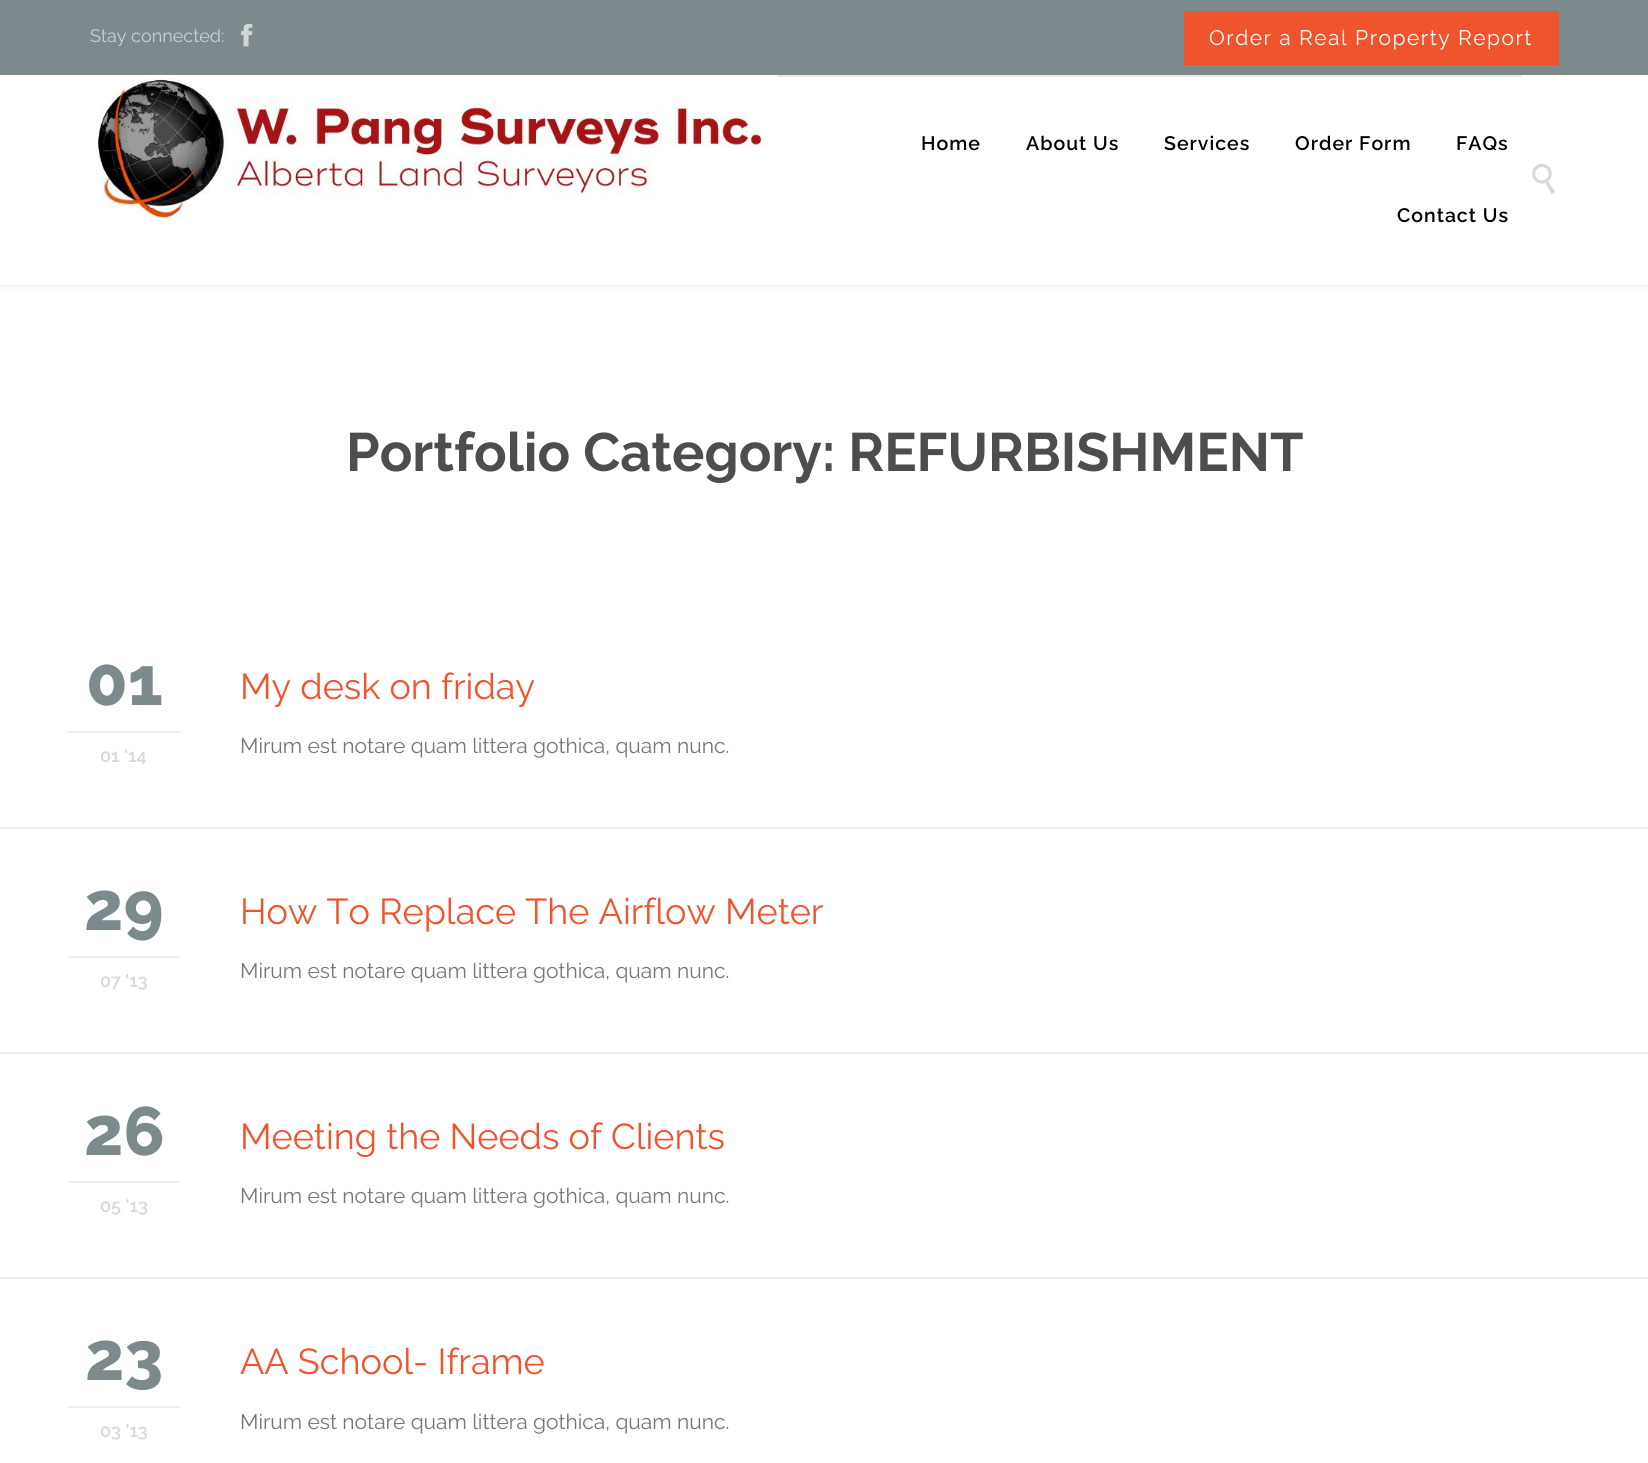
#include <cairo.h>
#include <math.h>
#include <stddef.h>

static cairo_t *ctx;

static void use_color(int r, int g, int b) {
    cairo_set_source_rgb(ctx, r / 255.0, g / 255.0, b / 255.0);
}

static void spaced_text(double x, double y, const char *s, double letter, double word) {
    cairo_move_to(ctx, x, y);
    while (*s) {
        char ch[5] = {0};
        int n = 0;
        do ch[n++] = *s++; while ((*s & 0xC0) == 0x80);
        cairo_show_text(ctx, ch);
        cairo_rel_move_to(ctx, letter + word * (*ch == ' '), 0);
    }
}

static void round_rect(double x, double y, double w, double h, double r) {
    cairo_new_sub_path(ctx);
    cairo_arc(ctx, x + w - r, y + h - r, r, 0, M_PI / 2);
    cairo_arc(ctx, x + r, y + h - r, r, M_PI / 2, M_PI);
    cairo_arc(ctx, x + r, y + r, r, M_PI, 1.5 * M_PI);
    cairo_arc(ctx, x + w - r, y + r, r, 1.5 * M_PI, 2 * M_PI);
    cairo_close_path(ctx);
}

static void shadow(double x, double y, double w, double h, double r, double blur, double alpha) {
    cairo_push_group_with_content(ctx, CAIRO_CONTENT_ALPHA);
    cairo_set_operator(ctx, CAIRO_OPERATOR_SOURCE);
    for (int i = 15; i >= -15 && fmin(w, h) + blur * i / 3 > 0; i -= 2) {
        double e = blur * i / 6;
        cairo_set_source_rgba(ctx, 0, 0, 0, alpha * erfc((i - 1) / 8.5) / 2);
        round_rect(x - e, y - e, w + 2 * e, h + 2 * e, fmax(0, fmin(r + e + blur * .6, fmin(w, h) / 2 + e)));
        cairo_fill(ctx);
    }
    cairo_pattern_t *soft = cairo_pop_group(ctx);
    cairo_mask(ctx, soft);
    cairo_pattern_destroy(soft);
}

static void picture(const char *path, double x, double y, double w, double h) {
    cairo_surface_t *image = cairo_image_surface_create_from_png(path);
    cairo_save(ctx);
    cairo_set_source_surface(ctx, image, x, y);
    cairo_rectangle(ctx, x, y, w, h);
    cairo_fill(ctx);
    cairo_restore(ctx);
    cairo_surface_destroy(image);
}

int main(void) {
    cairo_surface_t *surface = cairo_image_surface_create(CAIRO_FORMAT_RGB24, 1648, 1463);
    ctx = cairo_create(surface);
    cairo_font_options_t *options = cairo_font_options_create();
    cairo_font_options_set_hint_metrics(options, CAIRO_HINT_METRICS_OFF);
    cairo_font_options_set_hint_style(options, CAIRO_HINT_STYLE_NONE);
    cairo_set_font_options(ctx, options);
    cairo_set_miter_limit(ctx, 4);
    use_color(255, 255, 255);
    cairo_paint(ctx);
    use_color(0, 0, 0);
    shadow(0, 3, 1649, 285, 0, 1.5, 0.04);
    use_color(255, 255, 255);
    cairo_rectangle(ctx, 0, 75, 1648, 210);
    cairo_fill(ctx);
    use_color(124, 138, 141);
    cairo_rectangle(ctx, 0, 0, 1648, 75);
    cairo_fill(ctx);
    cairo_select_font_face(ctx, "Raleway", CAIRO_FONT_SLANT_NORMAL, CAIRO_FONT_WEIGHT_NORMAL);
    cairo_set_font_size(ctx, 18);
    use_color(204, 208, 208);
    cairo_move_to(ctx, 90, 42);
    cairo_show_text(ctx, "Stay connected:");
    picture("img1.png", 241, 23, 12, 24);
    use_color(240, 84, 45);
    cairo_rectangle(ctx, 1184, 11, 375, 54);
    cairo_fill(ctx);
    cairo_set_font_size(ctx, 21);
    use_color(255, 255, 255);
    spaced_text(1209, 45, "Order a Real Property Report", 1.5, 0);
    picture("img2.png", 96, 78, 672, 141);
    use_color(234, 234, 235);
    cairo_rectangle(ctx, 777, 75, 744, 2);
    cairo_fill(ctx);
    cairo_select_font_face(ctx, "Raleway SemiBold", CAIRO_FONT_SLANT_NORMAL, CAIRO_FONT_WEIGHT_NORMAL);
    cairo_set_font_size(ctx, 19.5);
    use_color(0, 0, 0);
    spaced_text(921, 150, "Home", 1, 0);
    spaced_text(1026, 150, "About Us", 1, 0);
    spaced_text(1164, 150, "Services", 1, 0);
    spaced_text(1295, 150, "Order Form", 1, 0);
    spaced_text(1456, 150, "FAQs", 1, 0);
    spaced_text(1397, 222, "Contact Us", 1, 0);
    picture("img3.png", 1532, 163, 23, 31);
    cairo_select_font_face(ctx, "Raleway", CAIRO_FONT_SLANT_NORMAL, CAIRO_FONT_WEIGHT_BOLD);
    cairo_set_font_size(ctx, 54);
    use_color(77, 77, 77);
    cairo_move_to(ctx, 346, 471);
    cairo_show_text(ctx, "Portfolio Category: REFURBISHMENT");
    use_color(237, 237, 237);
    cairo_rectangle(ctx, 0, 827, 1648, 2);
    cairo_fill(ctx);
    cairo_rectangle(ctx, 68, 731, 112, 2);
    cairo_fill(ctx);
    cairo_select_font_face(ctx, "Raleway ExtraBold", CAIRO_FONT_SLANT_NORMAL, CAIRO_FONT_WEIGHT_NORMAL);
    cairo_set_font_size(ctx, 68);
    use_color(124, 138, 141);
    cairo_move_to(ctx, 86, 705);
    cairo_show_text(ctx, "01");
    cairo_select_font_face(ctx, "Raleway SemiBold", CAIRO_FONT_SLANT_NORMAL, CAIRO_FONT_WEIGHT_NORMAL);
    cairo_set_font_size(ctx, 18);
    use_color(216, 216, 216);
    cairo_move_to(ctx, 100, 762);
    cairo_show_text(ctx, "01 '14");
    cairo_select_font_face(ctx, "Raleway", CAIRO_FONT_SLANT_NORMAL, CAIRO_FONT_WEIGHT_NORMAL);
    cairo_set_font_size(ctx, 36);
    use_color(240, 84, 45);
    cairo_move_to(ctx, 240, 699);
    cairo_show_text(ctx, "My desk on friday");
    cairo_set_font_size(ctx, 21);
    use_color(118, 118, 118);
    cairo_move_to(ctx, 240, 753);
    cairo_show_text(ctx, "Мirum est notare quam littera gothica, quam nunc.");
    use_color(237, 237, 237);
    cairo_rectangle(ctx, 0, 1052, 1648, 2);
    cairo_fill(ctx);
    cairo_rectangle(ctx, 68, 956, 112, 2);
    cairo_fill(ctx);
    cairo_select_font_face(ctx, "Raleway ExtraBold", CAIRO_FONT_SLANT_NORMAL, CAIRO_FONT_WEIGHT_NORMAL);
    cairo_set_font_size(ctx, 68);
    use_color(124, 138, 141);
    cairo_move_to(ctx, 84, 930);
    cairo_show_text(ctx, "29");
    cairo_select_font_face(ctx, "Raleway SemiBold", CAIRO_FONT_SLANT_NORMAL, CAIRO_FONT_WEIGHT_NORMAL);
    cairo_set_font_size(ctx, 18);
    use_color(216, 216, 216);
    cairo_move_to(ctx, 100, 987);
    cairo_show_text(ctx, "07 '13");
    cairo_select_font_face(ctx, "Raleway", CAIRO_FONT_SLANT_NORMAL, CAIRO_FONT_WEIGHT_NORMAL);
    cairo_set_font_size(ctx, 36);
    use_color(240, 84, 45);
    cairo_move_to(ctx, 240, 924);
    cairo_show_text(ctx, "How To Replace The Airflow Meter");
    cairo_set_font_size(ctx, 21);
    use_color(118, 118, 118);
    cairo_move_to(ctx, 240, 978);
    cairo_show_text(ctx, "Мirum est notare quam littera gothica, quam nunc.");
    use_color(237, 237, 237);
    cairo_rectangle(ctx, 0, 1277, 1648, 2);
    cairo_fill(ctx);
    cairo_rectangle(ctx, 68, 1181, 112, 2);
    cairo_fill(ctx);
    cairo_select_font_face(ctx, "Raleway ExtraBold", CAIRO_FONT_SLANT_NORMAL, CAIRO_FONT_WEIGHT_NORMAL);
    cairo_set_font_size(ctx, 68);
    use_color(124, 138, 141);
    cairo_move_to(ctx, 84, 1155);
    cairo_show_text(ctx, "26");
    cairo_select_font_face(ctx, "Raleway SemiBold", CAIRO_FONT_SLANT_NORMAL, CAIRO_FONT_WEIGHT_NORMAL);
    cairo_set_font_size(ctx, 18);
    use_color(216, 216, 216);
    cairo_move_to(ctx, 100, 1212);
    cairo_show_text(ctx, "05 '13");
    cairo_select_font_face(ctx, "Raleway", CAIRO_FONT_SLANT_NORMAL, CAIRO_FONT_WEIGHT_NORMAL);
    cairo_set_font_size(ctx, 36);
    use_color(240, 84, 45);
    cairo_move_to(ctx, 240, 1149);
    cairo_show_text(ctx, "Meeting the Needs of Clients");
    cairo_set_font_size(ctx, 21);
    use_color(118, 118, 118);
    cairo_move_to(ctx, 240, 1203);
    cairo_show_text(ctx, "Мirum est notare quam littera gothica, quam nunc.");
    use_color(237, 237, 237);
    cairo_rectangle(ctx, 68, 1406, 112, 2);
    cairo_fill(ctx);
    cairo_select_font_face(ctx, "Raleway ExtraBold", CAIRO_FONT_SLANT_NORMAL, CAIRO_FONT_WEIGHT_NORMAL);
    cairo_set_font_size(ctx, 68);
    use_color(124, 138, 141);
    cairo_move_to(ctx, 85, 1380);
    cairo_show_text(ctx, "23");
    cairo_select_font_face(ctx, "Raleway SemiBold", CAIRO_FONT_SLANT_NORMAL, CAIRO_FONT_WEIGHT_NORMAL);
    cairo_set_font_size(ctx, 18);
    use_color(216, 216, 216);
    cairo_move_to(ctx, 100, 1437);
    cairo_show_text(ctx, "03 '13");
    cairo_select_font_face(ctx, "Raleway", CAIRO_FONT_SLANT_NORMAL, CAIRO_FONT_WEIGHT_NORMAL);
    cairo_set_font_size(ctx, 36);
    use_color(240, 84, 45);
    cairo_move_to(ctx, 240, 1374);
    cairo_show_text(ctx, "AA School- Iframe");
    cairo_set_font_size(ctx, 21);
    use_color(118, 118, 118);
    cairo_move_to(ctx, 240, 1429);
    cairo_show_text(ctx, "Мirum est notare quam littera gothica, quam nunc.");
    cairo_surface_write_to_png(surface, "result.png");
    cairo_font_options_destroy(options);
    cairo_destroy(ctx);
    cairo_surface_destroy(surface);
    return 0;
}
